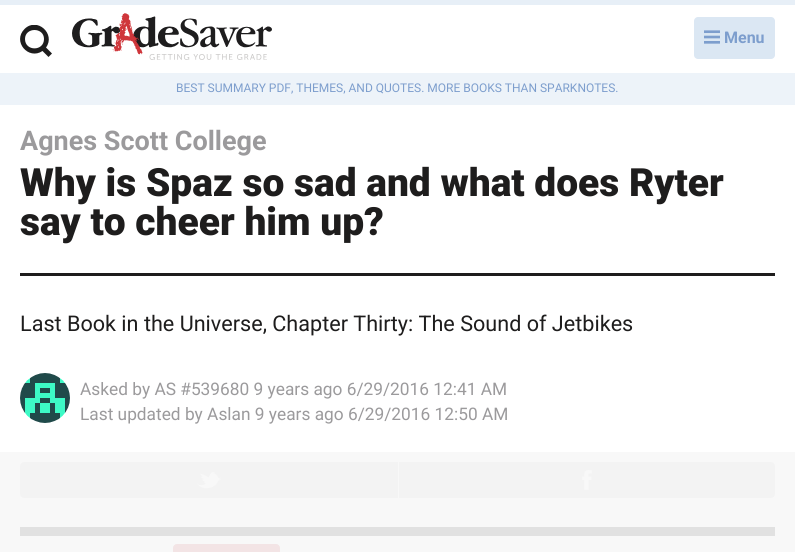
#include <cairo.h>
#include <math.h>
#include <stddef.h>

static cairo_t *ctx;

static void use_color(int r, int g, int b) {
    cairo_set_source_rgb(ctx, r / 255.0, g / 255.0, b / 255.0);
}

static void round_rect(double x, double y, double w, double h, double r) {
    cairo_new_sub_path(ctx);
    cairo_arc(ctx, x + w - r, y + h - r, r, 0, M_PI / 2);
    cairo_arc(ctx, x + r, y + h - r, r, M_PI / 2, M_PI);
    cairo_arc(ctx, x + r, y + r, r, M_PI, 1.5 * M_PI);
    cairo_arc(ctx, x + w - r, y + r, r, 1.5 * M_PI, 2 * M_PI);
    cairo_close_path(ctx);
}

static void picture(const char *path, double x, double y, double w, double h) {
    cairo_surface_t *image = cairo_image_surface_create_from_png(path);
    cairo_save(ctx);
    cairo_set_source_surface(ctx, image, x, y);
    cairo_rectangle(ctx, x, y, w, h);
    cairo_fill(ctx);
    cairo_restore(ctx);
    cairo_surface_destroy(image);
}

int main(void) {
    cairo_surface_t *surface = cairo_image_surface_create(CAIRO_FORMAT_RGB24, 795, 552);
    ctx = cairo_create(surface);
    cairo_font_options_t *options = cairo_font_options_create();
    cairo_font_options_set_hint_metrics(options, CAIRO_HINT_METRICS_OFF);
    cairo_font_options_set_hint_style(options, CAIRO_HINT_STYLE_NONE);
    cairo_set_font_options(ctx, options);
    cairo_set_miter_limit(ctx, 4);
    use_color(231, 239, 247);
    cairo_paint(ctx);
    use_color(255, 255, 255);
    cairo_rectangle(ctx, 0, 5, 795, 447);
    cairo_fill(ctx);
    use_color(248, 248, 248);
    cairo_rectangle(ctx, 0, 452, 795, 100);
    cairo_fill(ctx);
    cairo_save(ctx);
    cairo_rectangle(ctx, 20, 25, 32, 32);
    cairo_clip(ctx);
    use_color(30, 29, 29);
    cairo_new_path(ctx);
    cairo_move_to(ctx, 52, 53.5);
    cairo_line_to(ctx, 46, 47.5);
    cairo_curve_to(ctx, 56, 34, 37, 16.5, 24.5, 29);
    cairo_curve_to(ctx, 12, 41.5, 28.5, 60.5, 42.5, 51);
    cairo_line_to(ctx, 48.5, 57);
    cairo_close_path(ctx);
    cairo_move_to(ctx, 25, 39);
    cairo_curve_to(ctx, 25, 27, 44, 27, 44, 39);
    cairo_curve_to(ctx, 44, 51.5, 25, 51.5, 25, 39);
    cairo_close_path(ctx);
    cairo_fill(ctx);
    cairo_restore(ctx);
    picture("img1.png", 72, 13, 200, 47);
    use_color(219, 231, 243);
    round_rect(694, 17, 81, 42, 4);
    cairo_fill(ctx);
    picture("img2.png", 704, 30, 16, 14);
    cairo_select_font_face(ctx, "Roboto", CAIRO_FONT_SLANT_NORMAL, CAIRO_FONT_WEIGHT_BOLD);
    cairo_set_font_size(ctx, 16);
    use_color(125, 158, 205);
    cairo_move_to(ctx, 724, 43);
    cairo_show_text(ctx, "Menu");
    use_color(237, 243, 249);
    cairo_rectangle(ctx, 0, 73, 795, 32);
    cairo_fill(ctx);
    cairo_select_font_face(ctx, "Roboto", CAIRO_FONT_SLANT_NORMAL, CAIRO_FONT_WEIGHT_NORMAL);
    cairo_set_font_size(ctx, 12);
    use_color(125, 158, 205);
    cairo_move_to(ctx, 176, 92);
    cairo_show_text(ctx, "BEST SUMMARY PDF, THEMES, AND QUOTES. MORE BOOKS THAN SPARKNOTES.");
    use_color(30, 29, 29);
    cairo_rectangle(ctx, 20, 273, 755, 3);
    cairo_fill(ctx);
    cairo_select_font_face(ctx, "Roboto", CAIRO_FONT_SLANT_NORMAL, CAIRO_FONT_WEIGHT_BOLD);
    cairo_set_font_size(ctx, 27);
    use_color(155, 154, 156);
    cairo_move_to(ctx, 20, 150);
    cairo_show_text(ctx, "Agnes Scott College");
    cairo_select_font_face(ctx, "Roboto Black", CAIRO_FONT_SLANT_NORMAL, CAIRO_FONT_WEIGHT_NORMAL);
    cairo_set_font_size(ctx, 38.9);
    use_color(30, 29, 29);
    cairo_move_to(ctx, 20, 196);
    cairo_show_text(ctx, "Why is Spaz so sad and what does Ryter");
    cairo_move_to(ctx, 20, 235);
    cairo_show_text(ctx, "say to cheer him up?");
    cairo_select_font_face(ctx, "Roboto", CAIRO_FONT_SLANT_NORMAL, CAIRO_FONT_WEIGHT_NORMAL);
    cairo_set_font_size(ctx, 21.6);
    cairo_move_to(ctx, 20, 331);
    cairo_show_text(ctx, "Last Book in the Universe, Chapter Thirty: The Sound of Jetbikes");
    picture("img3.png", 20, 373, 50, 50);
    cairo_set_font_size(ctx, 17.3);
    use_color(155, 154, 156);
    cairo_move_to(ctx, 80, 395);
    cairo_show_text(ctx, "Asked by AS #539680 9 years ago 6/29/2016 12:41 AM");
    cairo_move_to(ctx, 80, 420);
    cairo_show_text(ctx, "Last updated by Aslan 9 years ago 6/29/2016 12:50 AM");
    use_color(243, 243, 243);
    round_rect(20, 462, 755, 36, 4);
    cairo_fill(ctx);
    picture("img4.png", 197, 471, 24, 18);
    use_color(248, 248, 248);
    cairo_rectangle(ctx, 398, 462, 1, 36);
    cairo_fill(ctx);
    picture("img5.png", 582, 470, 10, 20);
    use_color(225, 225, 225);
    cairo_rectangle(ctx, 20, 527, 755, 9);
    cairo_fill(ctx);
    use_color(243, 228, 229);
    round_rect(173.5, 544.5, 106, 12, 3.5);
    cairo_fill_preserve(ctx);
    cairo_set_line_width(ctx, 1);
    cairo_stroke(ctx);
    cairo_surface_write_to_png(surface, "result.png");
    cairo_font_options_destroy(options);
    cairo_destroy(ctx);
    cairo_surface_destroy(surface);
    return 0;
}
